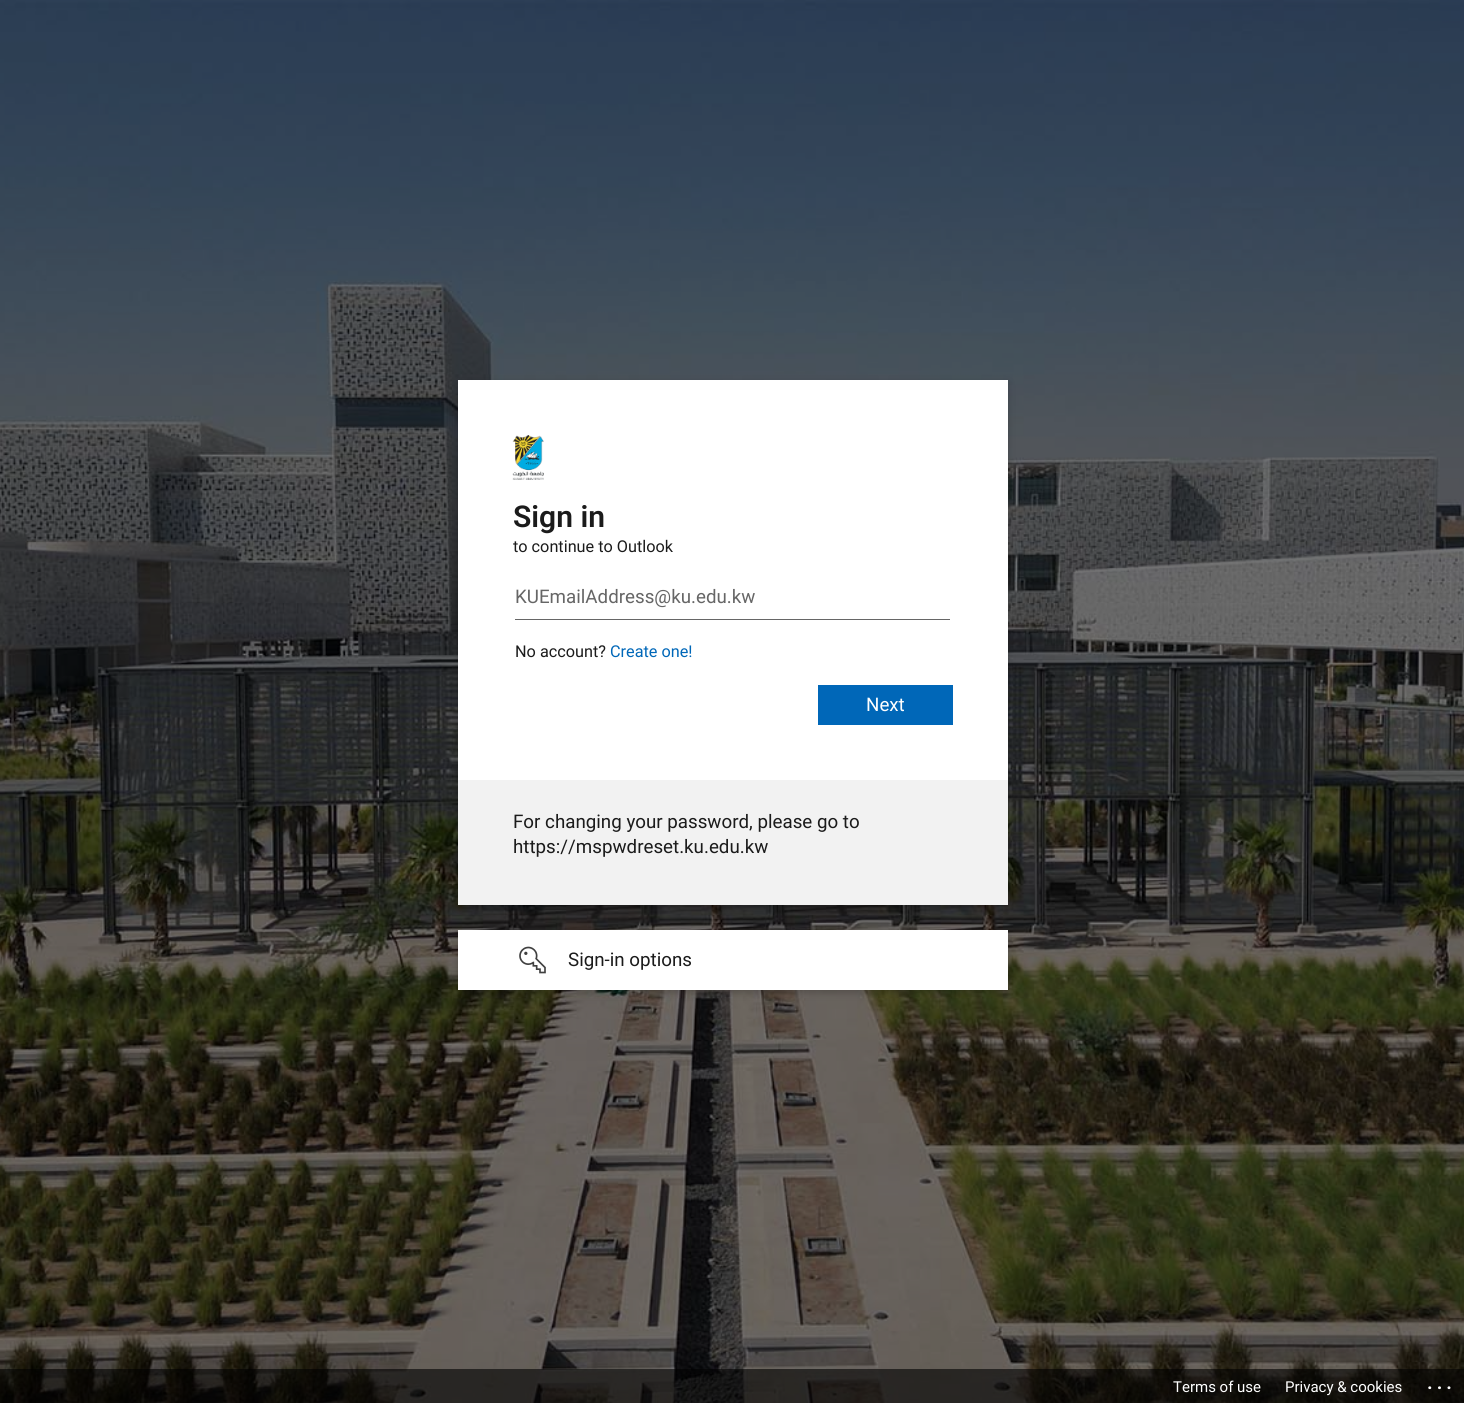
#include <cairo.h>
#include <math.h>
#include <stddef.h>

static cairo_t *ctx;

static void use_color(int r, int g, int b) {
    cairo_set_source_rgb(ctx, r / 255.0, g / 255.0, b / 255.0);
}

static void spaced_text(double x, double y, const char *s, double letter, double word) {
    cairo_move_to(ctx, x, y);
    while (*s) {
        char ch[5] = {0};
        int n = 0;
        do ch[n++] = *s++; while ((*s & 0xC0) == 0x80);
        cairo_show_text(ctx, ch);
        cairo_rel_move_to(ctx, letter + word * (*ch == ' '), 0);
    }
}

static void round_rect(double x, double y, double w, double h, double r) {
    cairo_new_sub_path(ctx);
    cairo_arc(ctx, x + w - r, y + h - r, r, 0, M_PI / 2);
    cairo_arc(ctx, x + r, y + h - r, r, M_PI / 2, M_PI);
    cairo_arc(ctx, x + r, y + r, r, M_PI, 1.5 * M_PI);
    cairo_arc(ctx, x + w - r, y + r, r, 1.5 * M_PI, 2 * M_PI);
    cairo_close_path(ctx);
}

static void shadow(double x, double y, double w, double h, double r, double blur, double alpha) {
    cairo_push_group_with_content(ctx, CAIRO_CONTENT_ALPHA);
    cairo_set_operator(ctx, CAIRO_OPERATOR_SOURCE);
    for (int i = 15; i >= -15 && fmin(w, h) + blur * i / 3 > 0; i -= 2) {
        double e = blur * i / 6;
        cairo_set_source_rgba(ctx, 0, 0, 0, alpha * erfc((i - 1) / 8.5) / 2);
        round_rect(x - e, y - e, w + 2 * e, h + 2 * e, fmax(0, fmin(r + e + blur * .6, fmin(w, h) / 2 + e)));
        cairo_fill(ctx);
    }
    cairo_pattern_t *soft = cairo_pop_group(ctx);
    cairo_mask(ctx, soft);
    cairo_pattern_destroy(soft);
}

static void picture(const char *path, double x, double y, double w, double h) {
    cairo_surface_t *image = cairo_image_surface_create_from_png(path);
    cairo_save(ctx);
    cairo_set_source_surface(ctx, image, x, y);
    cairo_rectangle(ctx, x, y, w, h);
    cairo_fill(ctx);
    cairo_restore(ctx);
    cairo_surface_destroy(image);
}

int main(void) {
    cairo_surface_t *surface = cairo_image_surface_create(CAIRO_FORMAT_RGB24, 1464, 1403);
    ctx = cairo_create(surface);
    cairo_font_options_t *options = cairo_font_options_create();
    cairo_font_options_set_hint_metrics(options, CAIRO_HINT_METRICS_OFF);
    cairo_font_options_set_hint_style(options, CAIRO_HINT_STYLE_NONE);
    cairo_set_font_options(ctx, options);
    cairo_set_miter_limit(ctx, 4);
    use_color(255, 255, 255);
    cairo_paint(ctx);
    picture("img1.png", 0, 0, 1464, 1403);
    use_color(0, 0, 0);
    shadow(458, 383, 550, 525, 0, 4, 0.2);
    use_color(255, 255, 255);
    cairo_rectangle(ctx, 458, 380, 550, 400);
    cairo_fill(ctx);
    picture("img2.png", 512, 435, 32, 45);
    cairo_select_font_face(ctx, "Roboto SemiBold", CAIRO_FONT_SLANT_NORMAL, CAIRO_FONT_WEIGHT_NORMAL);
    cairo_set_font_size(ctx, 30);
    use_color(27, 27, 27);
    cairo_move_to(ctx, 513, 527);
    cairo_show_text(ctx, "Sign in");
    cairo_select_font_face(ctx, "Roboto", CAIRO_FONT_SLANT_NORMAL, CAIRO_FONT_WEIGHT_NORMAL);
    cairo_set_font_size(ctx, 16.25);
    cairo_move_to(ctx, 513, 552);
    cairo_show_text(ctx, "to continue to Outlook");
    use_color(102, 102, 102);
    cairo_rectangle(ctx, 515, 619, 435, 1);
    cairo_fill(ctx);
    cairo_set_font_size(ctx, 18.75);
    cairo_move_to(ctx, 515, 603);
    cairo_show_text(ctx, "KUEmailAddress@ku.edu.kw");
    cairo_set_font_size(ctx, 16.25);
    use_color(27, 27, 27);
    cairo_move_to(ctx, 515, 657);
    cairo_show_text(ctx, "No account?");
    use_color(0, 103, 184);
    cairo_move_to(ctx, 610, 657);
    cairo_show_text(ctx, "Create one!");
    cairo_rectangle(ctx, 818, 685, 135, 40);
    cairo_fill(ctx);
    cairo_set_font_size(ctx, 18.75);
    use_color(255, 255, 255);
    cairo_move_to(ctx, 866, 711);
    cairo_show_text(ctx, "Next");
    use_color(242, 242, 242);
    cairo_rectangle(ctx, 458, 780, 550, 125);
    cairo_fill(ctx);
    use_color(27, 27, 27);
    cairo_move_to(ctx, 513, 828);
    cairo_show_text(ctx, "For changing your password, please go to");
    cairo_move_to(ctx, 513, 853);
    cairo_show_text(ctx, "https://mspwdreset.ku.edu.kw");
    use_color(0, 0, 0);
    shadow(458, 933, 550, 60, 0, 4, 0.2);
    use_color(255, 255, 255);
    cairo_rectangle(ctx, 458, 930, 550, 60);
    cairo_fill(ctx);
    picture("img3.png", 519, 946, 27, 28);
    use_color(27, 27, 27);
    cairo_move_to(ctx, 568, 966);
    cairo_show_text(ctx, "Sign-in options");
    cairo_set_source_rgba(ctx, 0, 0, 0, 0.6);
    cairo_rectangle(ctx, 0, 1369, 1464, 34);
    cairo_fill(ctx);
    cairo_set_font_size(ctx, 15);
    use_color(255, 255, 255);
    cairo_move_to(ctx, 1173, 1392);
    cairo_show_text(ctx, "Terms of use");
    cairo_move_to(ctx, 1285, 1392);
    cairo_show_text(ctx, "Privacy & cookies");
    cairo_select_font_face(ctx, "Roboto SemiBold", CAIRO_FONT_SLANT_NORMAL, CAIRO_FONT_WEIGHT_NORMAL);
    cairo_set_font_size(ctx, 20);
    spaced_text(1427, 1389, "...", 4, 0);
    cairo_surface_write_to_png(surface, "result.png");
    cairo_font_options_destroy(options);
    cairo_destroy(ctx);
    cairo_surface_destroy(surface);
    return 0;
}
